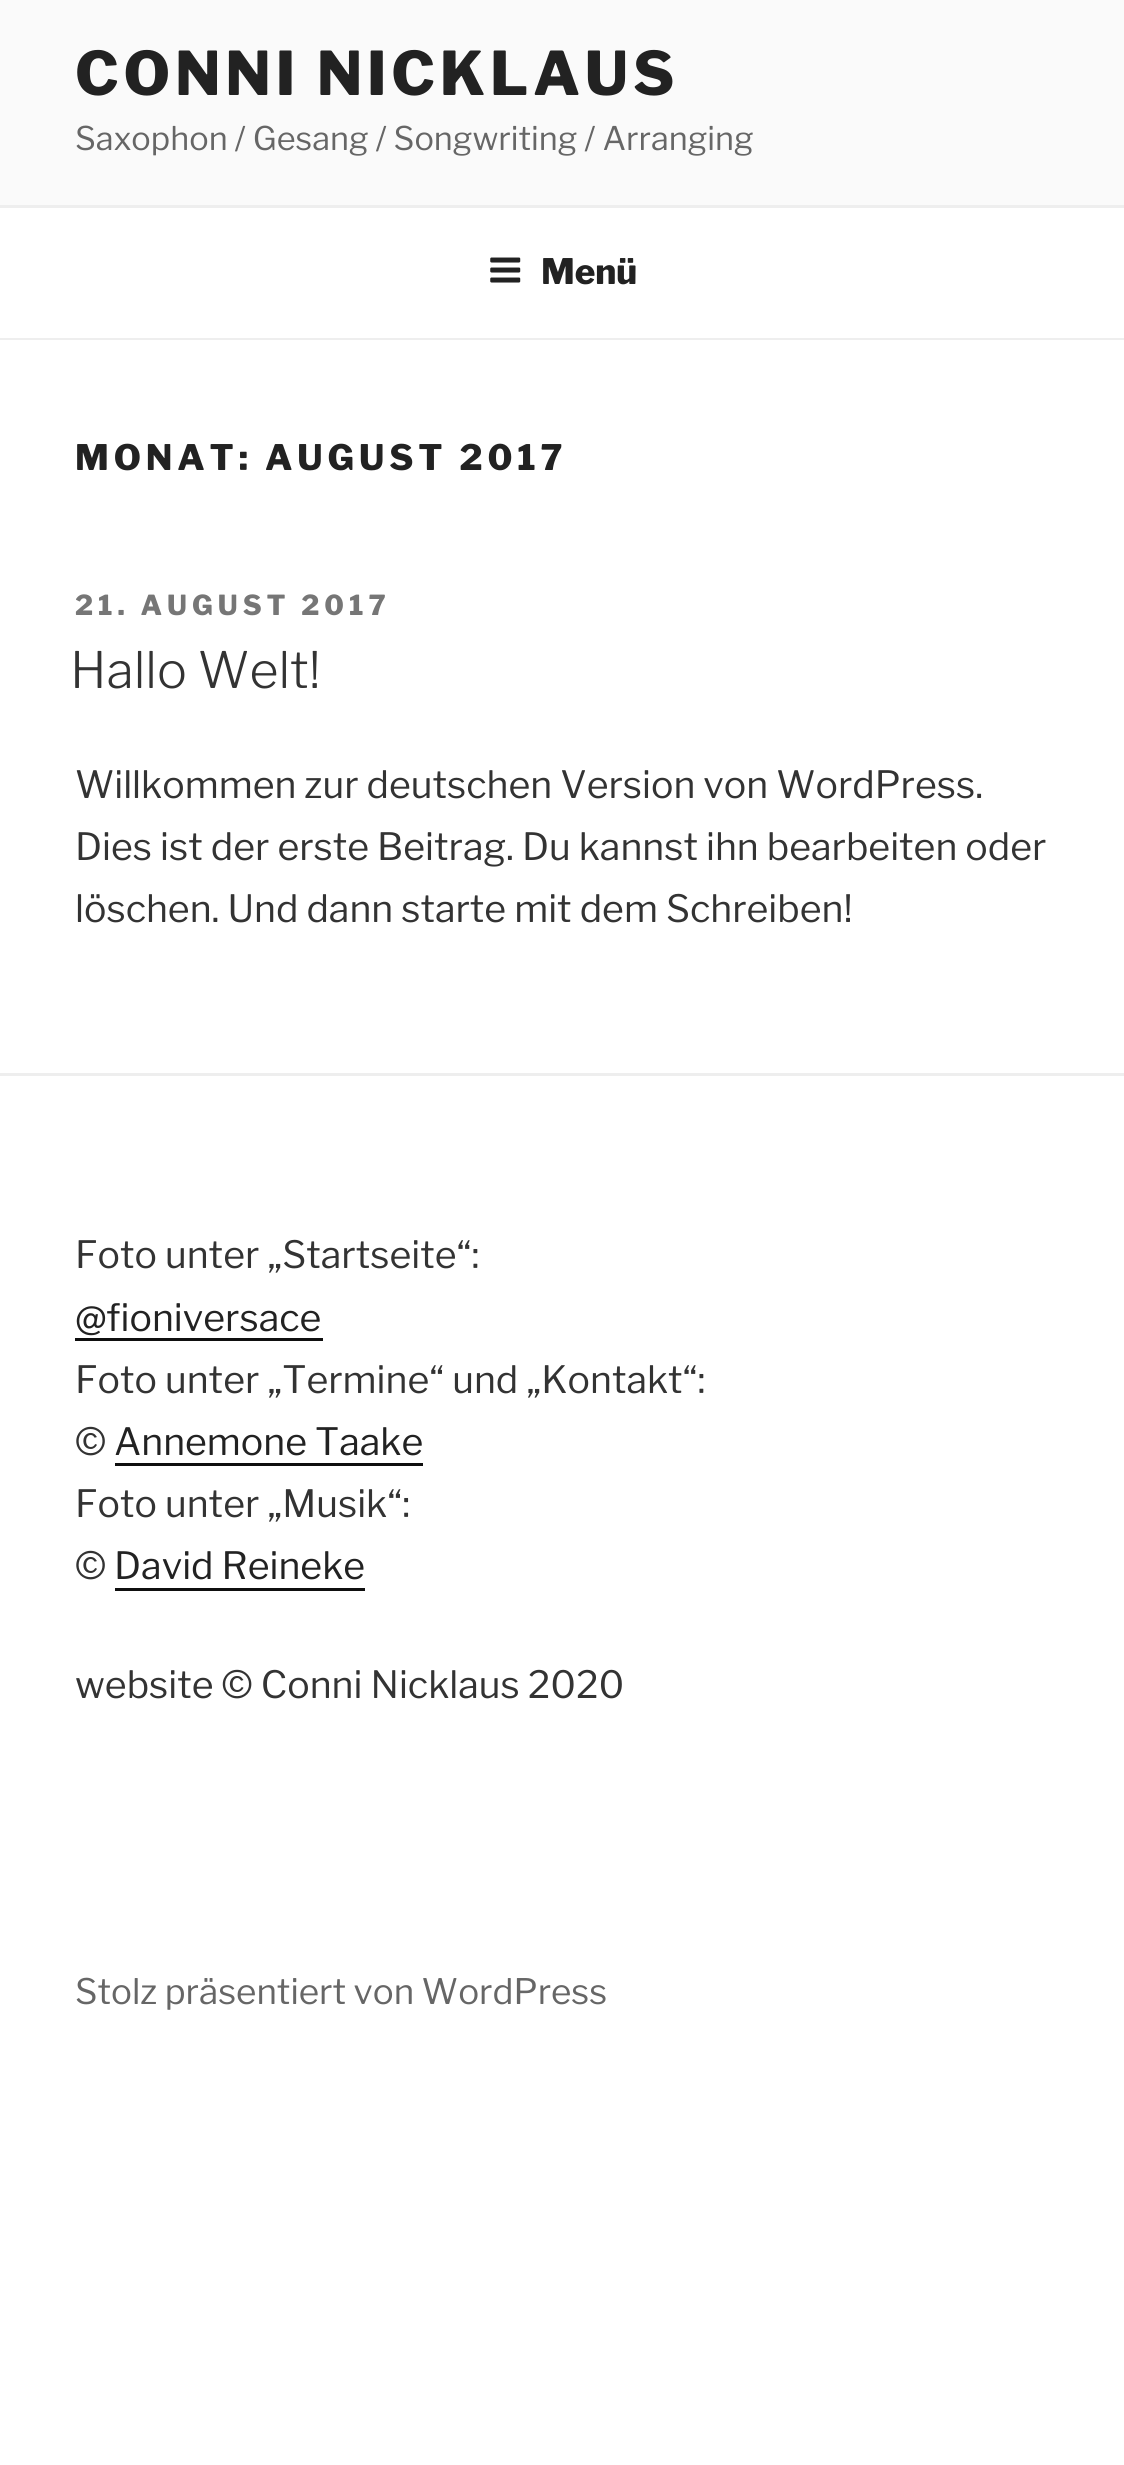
#include <cairo.h>
#include <math.h>
#include <stddef.h>

static cairo_t *ctx;

static void use_color(int r, int g, int b) {
    cairo_set_source_rgb(ctx, r / 255.0, g / 255.0, b / 255.0);
}

static void spaced_text(double x, double y, const char *s, double letter, double word) {
    cairo_move_to(ctx, x, y);
    while (*s) {
        char ch[5] = {0};
        int n = 0;
        do ch[n++] = *s++; while ((*s & 0xC0) == 0x80);
        cairo_show_text(ctx, ch);
        cairo_rel_move_to(ctx, letter + word * (*ch == ' '), 0);
    }
}

static void picture(const char *path, double x, double y, double w, double h) {
    cairo_surface_t *image = cairo_image_surface_create_from_png(path);
    cairo_save(ctx);
    cairo_set_source_surface(ctx, image, x, y);
    cairo_rectangle(ctx, x, y, w, h);
    cairo_fill(ctx);
    cairo_restore(ctx);
    cairo_surface_destroy(image);
}

int main(void) {
    cairo_surface_t *surface = cairo_image_surface_create(CAIRO_FORMAT_RGB24, 1124, 2465);
    ctx = cairo_create(surface);
    cairo_font_options_t *options = cairo_font_options_create();
    cairo_font_options_set_hint_metrics(options, CAIRO_HINT_METRICS_OFF);
    cairo_font_options_set_hint_style(options, CAIRO_HINT_STYLE_NONE);
    cairo_set_font_options(ctx, options);
    cairo_set_miter_limit(ctx, 4);
    use_color(255, 255, 255);
    cairo_paint(ctx);
    use_color(250, 250, 250);
    cairo_rectangle(ctx, 0, 0, 1124, 205);
    cairo_fill(ctx);
    cairo_select_font_face(ctx, "Libre Franklin Thin", CAIRO_FONT_SLANT_NORMAL, CAIRO_FONT_WEIGHT_NORMAL);
    cairo_set_font_size(ctx, 60);
    use_color(34, 34, 34);
    spaced_text(75, 95, "CONNI NICKLAUS", 4.75, 0);
    cairo_select_font_face(ctx, "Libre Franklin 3 Thin", CAIRO_FONT_SLANT_NORMAL, CAIRO_FONT_WEIGHT_NORMAL);
    cairo_set_font_size(ctx, 32.5);
    use_color(102, 102, 102);
    cairo_move_to(ctx, 75, 150);
    cairo_show_text(ctx, "Saxophon / Gesang / Songwriting / Arranging");
    use_color(238, 238, 238);
    cairo_rectangle(ctx, 0, 205, 1124, 3);
    cairo_fill(ctx);
    cairo_rectangle(ctx, 0, 338, 1124, 2);
    cairo_fill(ctx);
    picture("img1.png", 490, 257, 31, 26);
    cairo_select_font_face(ctx, "Libre Franklin Thin", CAIRO_FONT_SLANT_NORMAL, CAIRO_FONT_WEIGHT_NORMAL);
    cairo_set_font_size(ctx, 35);
    use_color(34, 34, 34);
    cairo_move_to(ctx, 541, 284);
    cairo_show_text(ctx, "Menü");
    spaced_text(75, 470, "MONAT: AUGUST 2017", 4.9, 0);
    cairo_set_font_size(ctx, 27.5);
    use_color(118, 118, 118);
    spaced_text(75, 615, "21. AUGUST 2017", 5, 0);
    cairo_select_font_face(ctx, "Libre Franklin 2 Thin", CAIRO_FONT_SLANT_NORMAL, CAIRO_FONT_WEIGHT_NORMAL);
    cairo_set_font_size(ctx, 50);
    use_color(51, 51, 51);
    cairo_move_to(ctx, 70, 688);
    cairo_show_text(ctx, "Hallo Welt!");
    cairo_select_font_face(ctx, "Libre Franklin 3 Thin", CAIRO_FONT_SLANT_NORMAL, CAIRO_FONT_WEIGHT_NORMAL);
    cairo_set_font_size(ctx, 37.5);
    cairo_move_to(ctx, 75, 798);
    cairo_show_text(ctx, "Willkommen zur deutschen Version von WordPress.");
    cairo_move_to(ctx, 75, 860);
    cairo_show_text(ctx, "Dies ist der erste Beitrag. Du kannst ihn bearbeiten oder");
    cairo_move_to(ctx, 75, 922);
    cairo_show_text(ctx, "löschen. Und dann starte mit dem Schreiben!");
    use_color(238, 238, 238);
    cairo_rectangle(ctx, 0, 1073, 1124, 3);
    cairo_fill(ctx);
    use_color(51, 51, 51);
    cairo_move_to(ctx, 75, 1268);
    cairo_show_text(ctx, "Foto unter „Startseite“:");
    use_color(34, 34, 34);
    cairo_move_to(ctx, 75, 1331);
    cairo_show_text(ctx, "@fioniversace");
    use_color(15, 15, 15);
    cairo_rectangle(ctx, 75, 1338, 248, 3);
    cairo_fill(ctx);
    use_color(51, 51, 51);
    cairo_move_to(ctx, 75, 1393);
    cairo_show_text(ctx, "Foto unter „Termine“ und „Kontakt“:");
    cairo_move_to(ctx, 75, 1455);
    cairo_show_text(ctx, "©");
    use_color(34, 34, 34);
    cairo_move_to(ctx, 114, 1455);
    cairo_show_text(ctx, "Annemone Taake");
    use_color(15, 15, 15);
    cairo_rectangle(ctx, 115, 1463, 308, 3);
    cairo_fill(ctx);
    use_color(51, 51, 51);
    cairo_move_to(ctx, 75, 1517);
    cairo_show_text(ctx, "Foto unter „Musik“:");
    cairo_move_to(ctx, 75, 1579);
    cairo_show_text(ctx, "©");
    use_color(34, 34, 34);
    cairo_move_to(ctx, 114, 1579);
    cairo_show_text(ctx, "David Reineke");
    use_color(15, 15, 15);
    cairo_rectangle(ctx, 115, 1588, 250, 3);
    cairo_fill(ctx);
    use_color(51, 51, 51);
    cairo_move_to(ctx, 75, 1698);
    cairo_show_text(ctx, "website © Conni Nicklaus 2020");
    cairo_set_font_size(ctx, 35);
    use_color(102, 102, 102);
    cairo_move_to(ctx, 75, 2004);
    cairo_show_text(ctx, "Stolz präsentiert von WordPress");
    cairo_surface_write_to_png(surface, "result.png");
    cairo_font_options_destroy(options);
    cairo_destroy(ctx);
    cairo_surface_destroy(surface);
    return 0;
}
